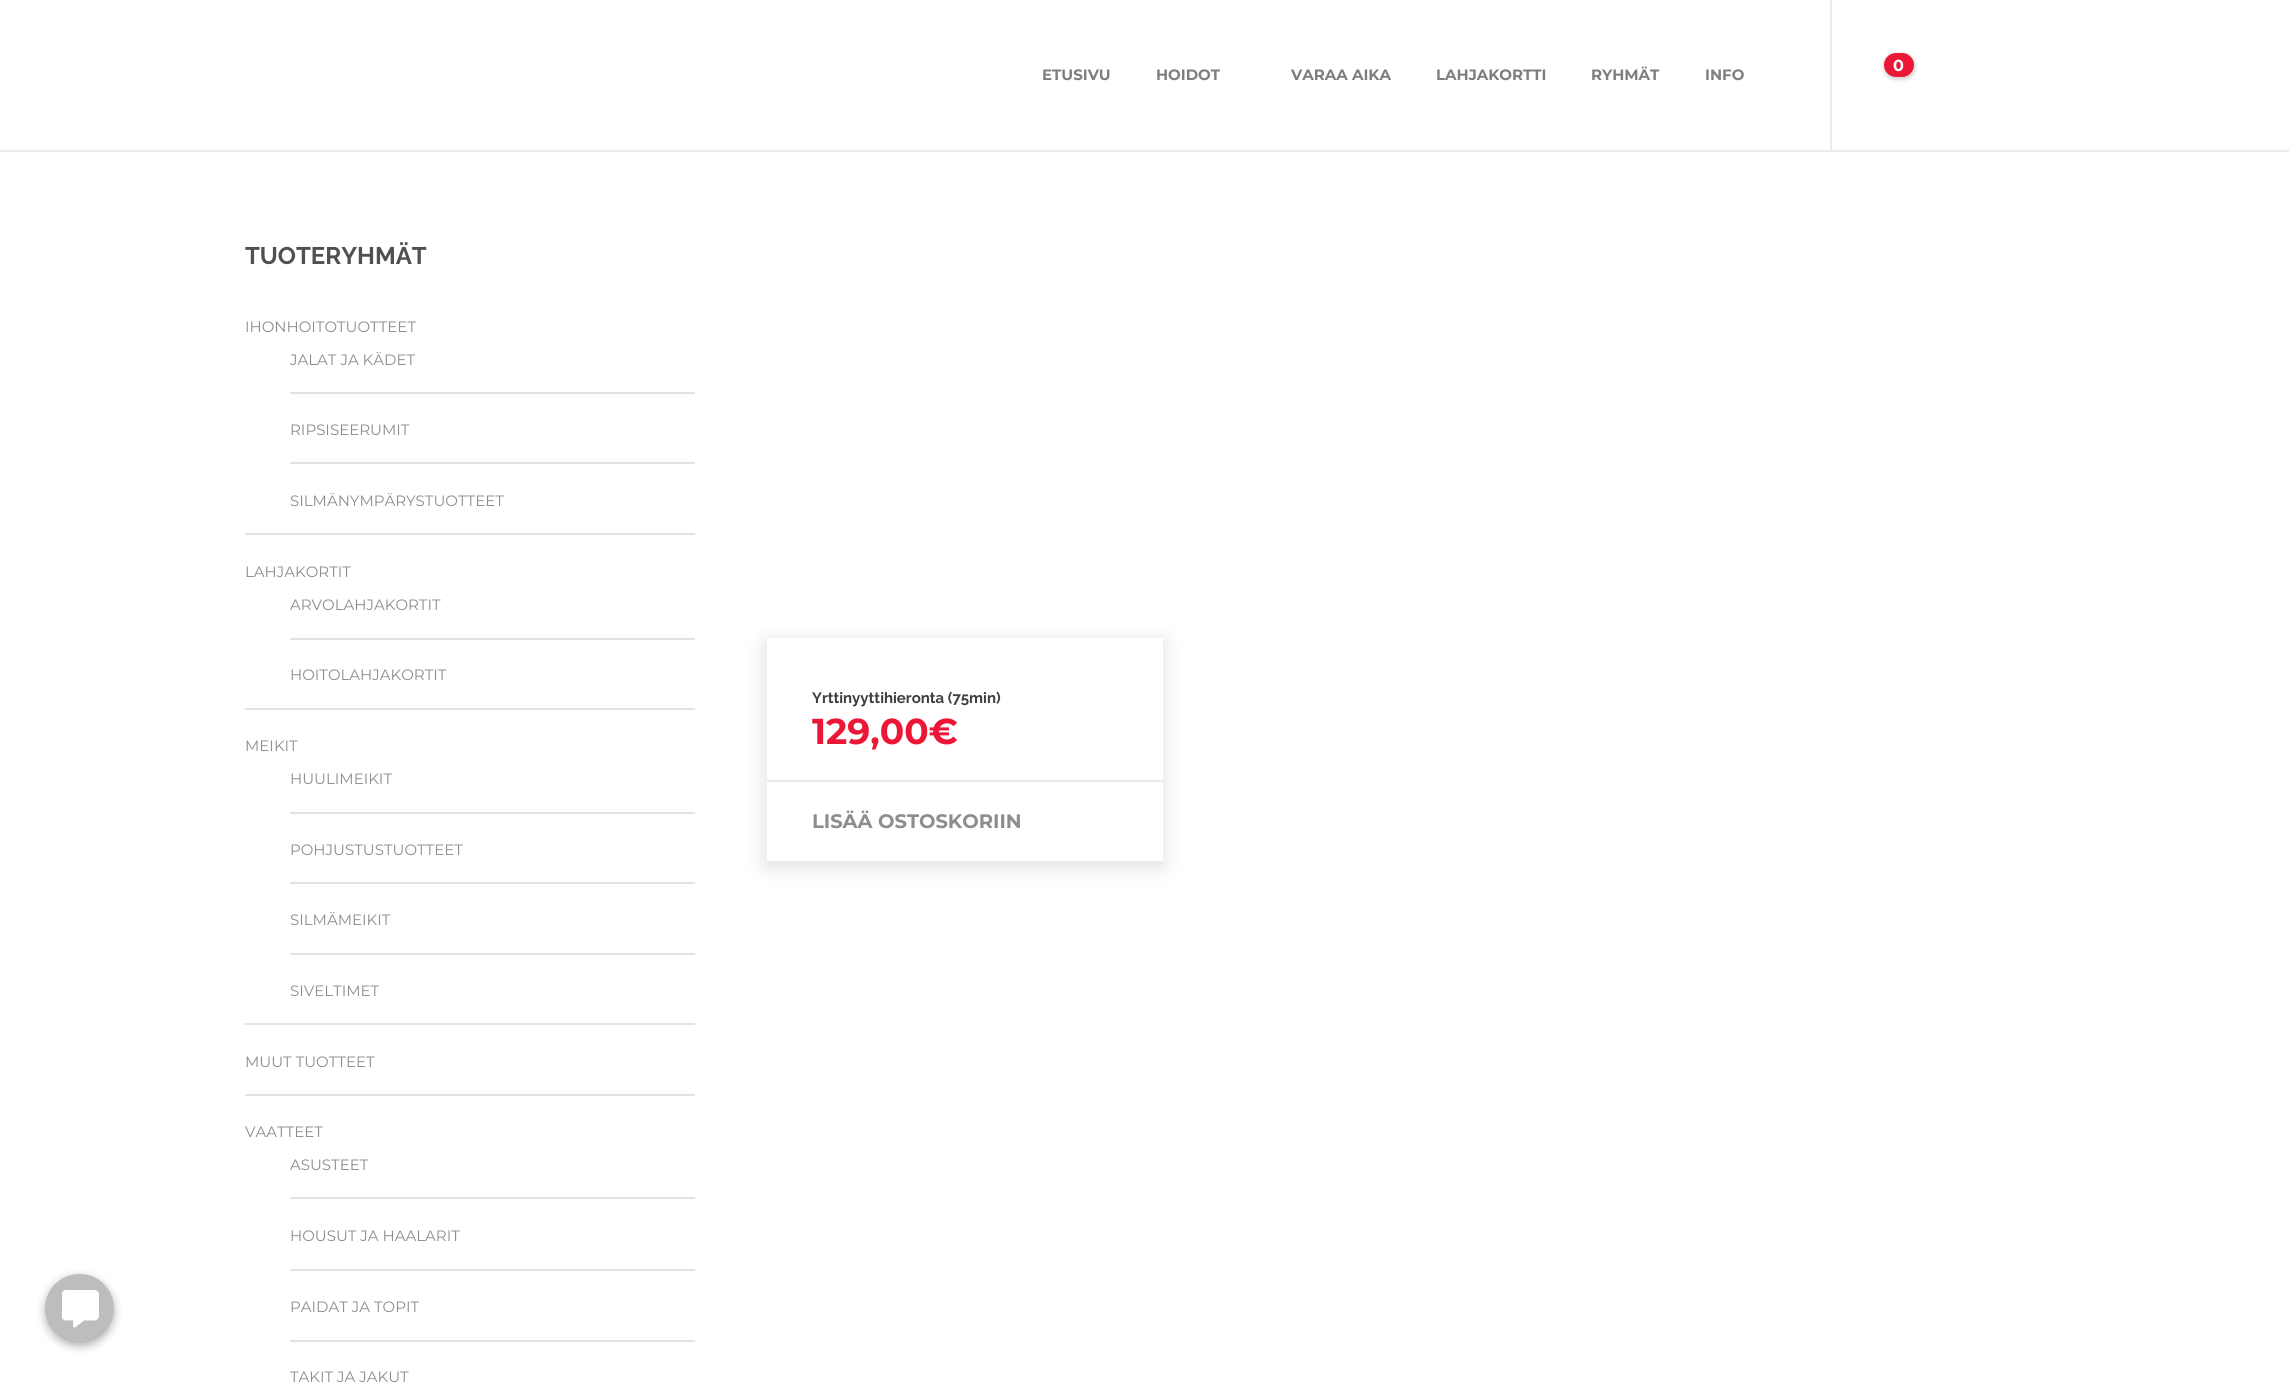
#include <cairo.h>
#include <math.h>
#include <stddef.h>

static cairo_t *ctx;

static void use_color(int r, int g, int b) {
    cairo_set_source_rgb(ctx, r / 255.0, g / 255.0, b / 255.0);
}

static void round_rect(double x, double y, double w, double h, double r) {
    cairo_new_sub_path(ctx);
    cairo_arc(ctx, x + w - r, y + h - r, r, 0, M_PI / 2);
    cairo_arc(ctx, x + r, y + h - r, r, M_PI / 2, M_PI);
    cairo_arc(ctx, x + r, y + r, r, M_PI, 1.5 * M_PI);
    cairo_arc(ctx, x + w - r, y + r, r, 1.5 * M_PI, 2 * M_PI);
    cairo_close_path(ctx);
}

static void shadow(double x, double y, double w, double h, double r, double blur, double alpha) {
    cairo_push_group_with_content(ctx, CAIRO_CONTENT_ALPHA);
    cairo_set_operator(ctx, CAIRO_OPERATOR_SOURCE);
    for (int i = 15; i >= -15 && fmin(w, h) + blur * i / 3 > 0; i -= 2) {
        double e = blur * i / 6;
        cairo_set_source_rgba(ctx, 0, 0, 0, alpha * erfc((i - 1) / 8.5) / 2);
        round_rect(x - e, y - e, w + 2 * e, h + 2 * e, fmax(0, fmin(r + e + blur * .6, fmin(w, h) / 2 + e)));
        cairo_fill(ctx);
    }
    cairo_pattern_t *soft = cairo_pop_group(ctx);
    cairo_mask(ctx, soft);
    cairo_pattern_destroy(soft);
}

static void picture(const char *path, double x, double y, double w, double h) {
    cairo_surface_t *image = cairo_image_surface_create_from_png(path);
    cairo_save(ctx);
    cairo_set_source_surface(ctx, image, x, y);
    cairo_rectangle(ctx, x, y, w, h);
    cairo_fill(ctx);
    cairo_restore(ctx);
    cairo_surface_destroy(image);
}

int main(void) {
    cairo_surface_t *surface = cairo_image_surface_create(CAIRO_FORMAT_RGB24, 2289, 1387);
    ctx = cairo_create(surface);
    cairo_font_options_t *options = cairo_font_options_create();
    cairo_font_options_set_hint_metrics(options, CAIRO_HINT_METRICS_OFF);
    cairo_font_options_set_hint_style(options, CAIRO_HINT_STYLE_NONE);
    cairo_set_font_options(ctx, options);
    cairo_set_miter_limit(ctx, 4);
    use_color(255, 255, 255);
    cairo_paint(ctx);
    use_color(0, 0, 0);
    shadow(45, 1277, 69, 69, 34.5, 4.5, 0.3);
    use_color(189, 189, 189);
    cairo_arc(ctx, 79.5, 1308.5, 33, 0, 2 * M_PI);
    cairo_fill_preserve(ctx);
    cairo_set_line_width(ctx, 3);
    cairo_stroke(ctx);
    picture("img1.png", 62, 1290, 37, 38);
    use_color(235, 235, 235);
    cairo_rectangle(ctx, 0, 150, 2289, 2);
    cairo_fill(ctx);
    cairo_select_font_face(ctx, "Montserrat", CAIRO_FONT_SLANT_NORMAL, CAIRO_FONT_WEIGHT_BOLD);
    cairo_set_font_size(ctx, 15);
    use_color(126, 126, 126);
    cairo_move_to(ctx, 1042, 80);
    cairo_show_text(ctx, "ETUSIVU");
    cairo_move_to(ctx, 1156, 80);
    cairo_show_text(ctx, "HOIDOT");
    cairo_move_to(ctx, 1291, 80);
    cairo_show_text(ctx, "VARAA AIKA");
    cairo_move_to(ctx, 1436, 80);
    cairo_show_text(ctx, "LAHJAKORTTI");
    cairo_move_to(ctx, 1591, 80);
    cairo_show_text(ctx, "RYHMÄT");
    cairo_move_to(ctx, 1705, 80);
    cairo_show_text(ctx, "INFO");
    use_color(235, 235, 235);
    cairo_rectangle(ctx, 1830, 0, 2, 150);
    cairo_fill(ctx);
    use_color(0, 0, 0);
    shadow(1883, 53, 33, 27, 13.5, 1.5, 0.15);
    use_color(236, 23, 54);
    round_rect(1884, 53, 30, 24, 12);
    cairo_fill(ctx);
    cairo_set_font_size(ctx, 16);
    use_color(255, 255, 255);
    cairo_move_to(ctx, 1893, 71);
    cairo_show_text(ctx, "0");
    cairo_select_font_face(ctx, "Raleway", CAIRO_FONT_SLANT_NORMAL, CAIRO_FONT_WEIGHT_BOLD);
    cairo_set_font_size(ctx, 24);
    use_color(80, 80, 80);
    cairo_move_to(ctx, 245, 264);
    cairo_show_text(ctx, "TUOTERYHMÄT");
    use_color(227, 227, 227);
    cairo_rectangle(ctx, 245, 533, 450, 2);
    cairo_fill(ctx);
    cairo_select_font_face(ctx, "Montserrat", CAIRO_FONT_SLANT_NORMAL, CAIRO_FONT_WEIGHT_NORMAL);
    cairo_set_font_size(ctx, 15);
    use_color(141, 141, 141);
    cairo_move_to(ctx, 245, 332);
    cairo_show_text(ctx, "IHONHOITOTUOTTEET");
    use_color(227, 227, 227);
    cairo_rectangle(ctx, 290, 392, 405, 2);
    cairo_fill(ctx);
    use_color(141, 141, 141);
    cairo_move_to(ctx, 290, 365);
    cairo_show_text(ctx, "JALAT JA KÄDET");
    use_color(227, 227, 227);
    cairo_rectangle(ctx, 290, 462, 405, 2);
    cairo_fill(ctx);
    use_color(141, 141, 141);
    cairo_move_to(ctx, 290, 435);
    cairo_show_text(ctx, "RIPSISEERUMIT");
    cairo_move_to(ctx, 290, 506);
    cairo_show_text(ctx, "SILMÄNYMPÄRYSTUOTTEET");
    use_color(227, 227, 227);
    cairo_rectangle(ctx, 245, 708, 450, 2);
    cairo_fill(ctx);
    use_color(141, 141, 141);
    cairo_move_to(ctx, 245, 577);
    cairo_show_text(ctx, "LAHJAKORTIT");
    use_color(227, 227, 227);
    cairo_rectangle(ctx, 290, 638, 405, 2);
    cairo_fill(ctx);
    use_color(141, 141, 141);
    cairo_move_to(ctx, 290, 610);
    cairo_show_text(ctx, "ARVOLAHJAKORTIT");
    cairo_move_to(ctx, 290, 680);
    cairo_show_text(ctx, "HOITOLAHJAKORTIT");
    use_color(227, 227, 227);
    cairo_rectangle(ctx, 245, 1023, 450, 2);
    cairo_fill(ctx);
    use_color(141, 141, 141);
    cairo_move_to(ctx, 245, 751);
    cairo_show_text(ctx, "MEIKIT");
    use_color(227, 227, 227);
    cairo_rectangle(ctx, 290, 812, 405, 2);
    cairo_fill(ctx);
    use_color(141, 141, 141);
    cairo_move_to(ctx, 290, 784);
    cairo_show_text(ctx, "HUULIMEIKIT");
    use_color(227, 227, 227);
    cairo_rectangle(ctx, 290, 882, 405, 2);
    cairo_fill(ctx);
    use_color(141, 141, 141);
    cairo_move_to(ctx, 290, 855);
    cairo_show_text(ctx, "POHJUSTUSTUOTTEET");
    use_color(227, 227, 227);
    cairo_rectangle(ctx, 290, 953, 405, 2);
    cairo_fill(ctx);
    use_color(141, 141, 141);
    cairo_move_to(ctx, 290, 925);
    cairo_show_text(ctx, "SILMÄMEIKIT");
    cairo_move_to(ctx, 290, 996);
    cairo_show_text(ctx, "SIVELTIMET");
    use_color(227, 227, 227);
    cairo_rectangle(ctx, 245, 1094, 450, 2);
    cairo_fill(ctx);
    use_color(141, 141, 141);
    cairo_move_to(ctx, 245, 1067);
    cairo_show_text(ctx, "MUUT TUOTTEET");
    cairo_move_to(ctx, 245, 1137);
    cairo_show_text(ctx, "VAATTEET");
    use_color(227, 227, 227);
    cairo_rectangle(ctx, 290, 1197, 405, 2);
    cairo_fill(ctx);
    use_color(141, 141, 141);
    cairo_move_to(ctx, 290, 1170);
    cairo_show_text(ctx, "ASUSTEET");
    use_color(227, 227, 227);
    cairo_rectangle(ctx, 290, 1269, 405, 2);
    cairo_fill(ctx);
    use_color(141, 141, 141);
    cairo_move_to(ctx, 290, 1241);
    cairo_show_text(ctx, "HOUSUT JA HAALARIT");
    use_color(227, 227, 227);
    cairo_rectangle(ctx, 290, 1340, 405, 2);
    cairo_fill(ctx);
    use_color(141, 141, 141);
    cairo_move_to(ctx, 290, 1312);
    cairo_show_text(ctx, "PAIDAT JA TOPIT");
    cairo_move_to(ctx, 290, 1382);
    cairo_show_text(ctx, "TAKIT JA JAKUT");
    use_color(0, 0, 0);
    shadow(765, 641, 399, 226, 0, 10, 0.12);
    use_color(255, 255, 255);
    cairo_rectangle(ctx, 767, 638, 396, 223);
    cairo_fill(ctx);
    use_color(233, 233, 233);
    cairo_rectangle(ctx, 767, 780, 396, 2);
    cairo_fill(ctx);
    cairo_select_font_face(ctx, "Raleway", CAIRO_FONT_SLANT_NORMAL, CAIRO_FONT_WEIGHT_BOLD);
    use_color(63, 63, 63);
    cairo_move_to(ctx, 812, 703);
    cairo_show_text(ctx, "Yrttinyyttihieronta (75min)");
    cairo_select_font_face(ctx, "Montserrat", CAIRO_FONT_SLANT_NORMAL, CAIRO_FONT_WEIGHT_BOLD);
    cairo_set_font_size(ctx, 36);
    use_color(236, 23, 54);
    cairo_move_to(ctx, 812, 744);
    cairo_show_text(ctx, "129,00€");
    cairo_set_font_size(ctx, 19.5);
    use_color(141, 141, 141);
    cairo_move_to(ctx, 812, 828);
    cairo_show_text(ctx, "LISÄÄ OSTOSKORIIN");
    cairo_surface_write_to_png(surface, "result.png");
    cairo_font_options_destroy(options);
    cairo_destroy(ctx);
    cairo_surface_destroy(surface);
    return 0;
}
